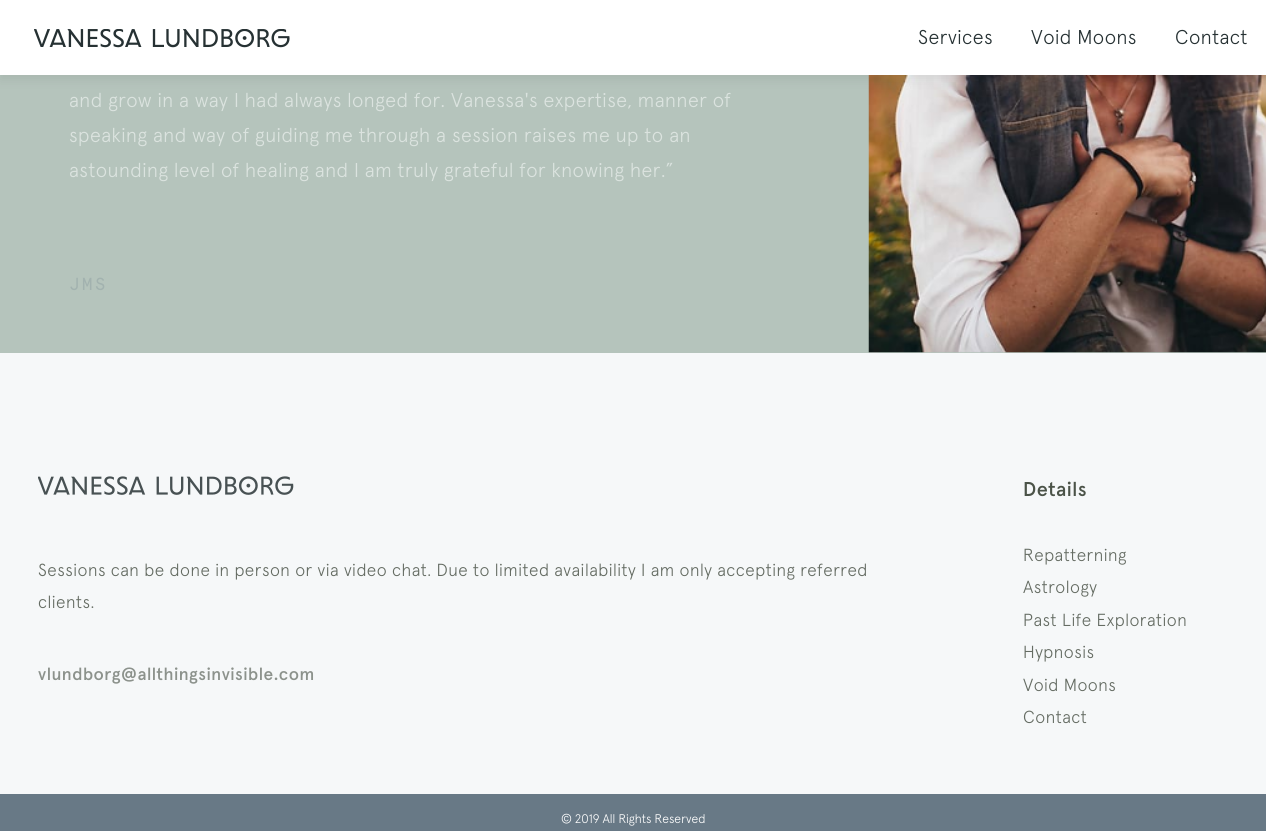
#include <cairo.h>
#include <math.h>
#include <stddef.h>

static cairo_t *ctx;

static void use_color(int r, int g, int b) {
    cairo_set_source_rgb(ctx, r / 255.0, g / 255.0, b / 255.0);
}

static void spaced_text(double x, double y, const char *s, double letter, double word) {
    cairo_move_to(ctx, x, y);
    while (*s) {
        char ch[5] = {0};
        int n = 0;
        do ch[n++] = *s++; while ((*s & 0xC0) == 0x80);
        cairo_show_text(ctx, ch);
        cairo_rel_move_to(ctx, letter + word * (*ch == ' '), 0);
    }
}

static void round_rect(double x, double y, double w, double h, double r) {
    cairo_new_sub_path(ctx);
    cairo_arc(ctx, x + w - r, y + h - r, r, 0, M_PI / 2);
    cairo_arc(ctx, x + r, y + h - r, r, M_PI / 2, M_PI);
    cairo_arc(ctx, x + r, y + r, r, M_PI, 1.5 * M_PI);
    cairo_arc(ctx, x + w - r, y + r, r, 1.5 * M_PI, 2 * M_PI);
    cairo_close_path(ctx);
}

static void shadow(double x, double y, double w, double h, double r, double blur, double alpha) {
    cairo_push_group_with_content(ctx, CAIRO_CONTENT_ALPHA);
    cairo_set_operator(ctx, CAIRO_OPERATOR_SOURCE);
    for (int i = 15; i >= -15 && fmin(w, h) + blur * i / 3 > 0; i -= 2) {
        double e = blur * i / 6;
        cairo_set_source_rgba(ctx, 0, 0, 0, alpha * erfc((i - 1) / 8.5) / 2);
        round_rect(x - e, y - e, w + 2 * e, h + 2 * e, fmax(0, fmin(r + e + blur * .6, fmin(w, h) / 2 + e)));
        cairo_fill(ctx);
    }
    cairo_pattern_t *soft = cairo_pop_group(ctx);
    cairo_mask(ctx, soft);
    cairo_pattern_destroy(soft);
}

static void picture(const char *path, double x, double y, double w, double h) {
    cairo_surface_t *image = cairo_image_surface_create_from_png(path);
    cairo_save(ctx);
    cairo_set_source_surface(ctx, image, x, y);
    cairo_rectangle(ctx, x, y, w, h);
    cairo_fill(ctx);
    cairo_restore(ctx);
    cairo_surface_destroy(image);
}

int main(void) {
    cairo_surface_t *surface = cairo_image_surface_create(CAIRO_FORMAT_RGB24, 1266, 831);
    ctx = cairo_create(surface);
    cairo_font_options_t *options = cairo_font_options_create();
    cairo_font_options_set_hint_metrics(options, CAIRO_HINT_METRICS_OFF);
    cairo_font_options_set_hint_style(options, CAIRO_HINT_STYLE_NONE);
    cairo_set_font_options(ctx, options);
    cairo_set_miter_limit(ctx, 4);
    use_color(181, 196, 188);
    cairo_paint(ctx);
    picture("img2.png", 869, 352, 9, 1);
    picture("img3.png", 868, 75, 398, 278);
    use_color(0, 0, 0);
    shadow(0, 5, 1266, 75, 0, 6, 0.07);
    use_color(255, 255, 255);
    cairo_rectangle(ctx, 0, 0, 1266, 75);
    cairo_fill(ctx);
    picture("img1.png", 34, 29, 256, 19);
    cairo_select_font_face(ctx, "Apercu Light", CAIRO_FONT_SLANT_NORMAL, CAIRO_FONT_WEIGHT_NORMAL);
    cairo_set_font_size(ctx, 20);
    use_color(38, 49, 51);
    spaced_text(918, 44, "Services", 0.46, 0);
    spaced_text(1031, 44, "Void Moons", 0.46, 0);
    spaced_text(1175, 44, "Contact", 0.46, 0);
    use_color(219, 227, 223);
    spaced_text(69, 107, "and grow in a way I had always longed for. Vanessa's expertise, manner of", 0.46, 0);
    spaced_text(69, 142, "speaking and way of guiding me through a session raises me up to an", 0.46, 0);
    spaced_text(69, 177, "astounding level of healing and I am truly grateful for knowing her.”", 0.46, 0);
    cairo_select_font_face(ctx, "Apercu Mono", CAIRO_FONT_SLANT_NORMAL, CAIRO_FONT_WEIGHT_NORMAL);
    cairo_set_font_size(ctx, 17.5);
    use_color(162, 178, 175);
    spaced_text(69, 290, "JMS", 2, 0);
    use_color(246, 248, 249);
    cairo_rectangle(ctx, 0, 353, 1266, 441);
    cairo_fill(ctx);
    picture("img4.png", 38, 476, 256, 19);
    cairo_select_font_face(ctx, "Apercu Light", CAIRO_FONT_SLANT_NORMAL, CAIRO_FONT_WEIGHT_NORMAL);
    use_color(101, 108, 99);
    spaced_text(38, 576, "Sessions can be done in person or via video chat. Due to limited availability I am only accepting referred", 0.46, 0);
    spaced_text(38, 608, "clients.", 0.46, 0);
    cairo_select_font_face(ctx, "Apercu Medium", CAIRO_FONT_SLANT_NORMAL, CAIRO_FONT_WEIGHT_NORMAL);
    use_color(140, 146, 140);
    spaced_text(38, 680, "vlundborg@allthingsinvisible.com", 0.46, 0);
    cairo_set_font_size(ctx, 20);
    use_color(75, 83, 72);
    spaced_text(1023, 496, "Details", 0.46, 0);
    cairo_select_font_face(ctx, "Apercu Light", CAIRO_FONT_SLANT_NORMAL, CAIRO_FONT_WEIGHT_NORMAL);
    cairo_set_font_size(ctx, 17.5);
    use_color(101, 108, 99);
    spaced_text(1023, 561, "Repatterning", 0.46, 0);
    spaced_text(1023, 593, "Astrology", 0.46, 0);
    spaced_text(1023, 626, "Past Life Exploration", 0.46, 0);
    spaced_text(1023, 658, "Hypnosis", 0.46, 0);
    spaced_text(1023, 691, "Void Moons", 0.46, 0);
    spaced_text(1023, 723, "Contact", 0.46, 0);
    use_color(104, 121, 134);
    cairo_rectangle(ctx, 0, 794, 1266, 37);
    cairo_fill(ctx);
    cairo_set_font_size(ctx, 12.5);
    use_color(255, 255, 255);
    cairo_move_to(ctx, 561, 823);
    cairo_show_text(ctx, "© 2019 All Rights Reserved");
    cairo_surface_write_to_png(surface, "result.png");
    cairo_font_options_destroy(options);
    cairo_destroy(ctx);
    cairo_surface_destroy(surface);
    return 0;
}
